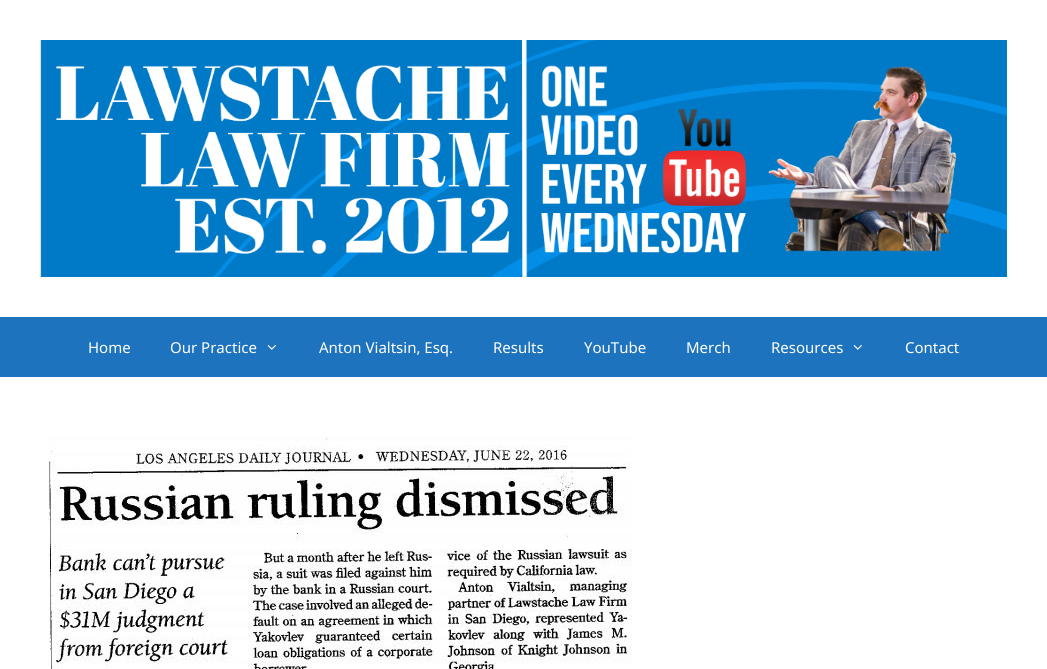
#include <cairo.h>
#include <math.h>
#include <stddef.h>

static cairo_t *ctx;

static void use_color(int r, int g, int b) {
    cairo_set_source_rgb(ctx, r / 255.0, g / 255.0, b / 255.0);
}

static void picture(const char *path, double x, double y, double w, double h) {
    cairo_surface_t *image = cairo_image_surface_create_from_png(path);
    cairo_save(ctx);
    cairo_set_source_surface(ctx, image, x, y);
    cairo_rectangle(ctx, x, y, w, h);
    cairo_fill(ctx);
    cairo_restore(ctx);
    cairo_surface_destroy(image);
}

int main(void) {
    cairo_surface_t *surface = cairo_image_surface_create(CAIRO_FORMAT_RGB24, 1047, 669);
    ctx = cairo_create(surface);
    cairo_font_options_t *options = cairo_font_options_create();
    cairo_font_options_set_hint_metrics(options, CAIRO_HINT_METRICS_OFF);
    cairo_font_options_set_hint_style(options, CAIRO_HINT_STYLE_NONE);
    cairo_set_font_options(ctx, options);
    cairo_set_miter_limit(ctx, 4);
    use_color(255, 255, 255);
    cairo_paint(ctx);
    picture("img1.png", 40, 40, 967, 237);
    use_color(30, 115, 190);
    cairo_rectangle(ctx, 0, 317, 1047, 60);
    cairo_fill(ctx);
    cairo_select_font_face(ctx, "Noto Sans", CAIRO_FONT_SLANT_NORMAL, CAIRO_FONT_WEIGHT_NORMAL);
    cairo_set_font_size(ctx, 15);
    use_color(255, 255, 255);
    cairo_move_to(ctx, 88, 353);
    cairo_show_text(ctx, "Home");
    cairo_move_to(ctx, 170, 353);
    cairo_show_text(ctx, "Our Practice");
    picture("img2.png", 267, 345, 9, 5);
    cairo_move_to(ctx, 319, 353);
    cairo_show_text(ctx, "Anton Vialtsin, Esq.");
    cairo_move_to(ctx, 493, 353);
    cairo_show_text(ctx, "Results");
    cairo_move_to(ctx, 584, 353);
    cairo_show_text(ctx, "YouTube");
    cairo_move_to(ctx, 686, 353);
    cairo_show_text(ctx, "Merch");
    cairo_move_to(ctx, 771, 353);
    cairo_show_text(ctx, "Resources");
    picture("img2.png", 853, 345, 9, 5);
    cairo_move_to(ctx, 905, 353);
    cairo_show_text(ctx, "Contact");
    picture("img3.png", 48, 437, 584, 232);
    cairo_surface_write_to_png(surface, "result.png");
    cairo_font_options_destroy(options);
    cairo_destroy(ctx);
    cairo_surface_destroy(surface);
    return 0;
}
